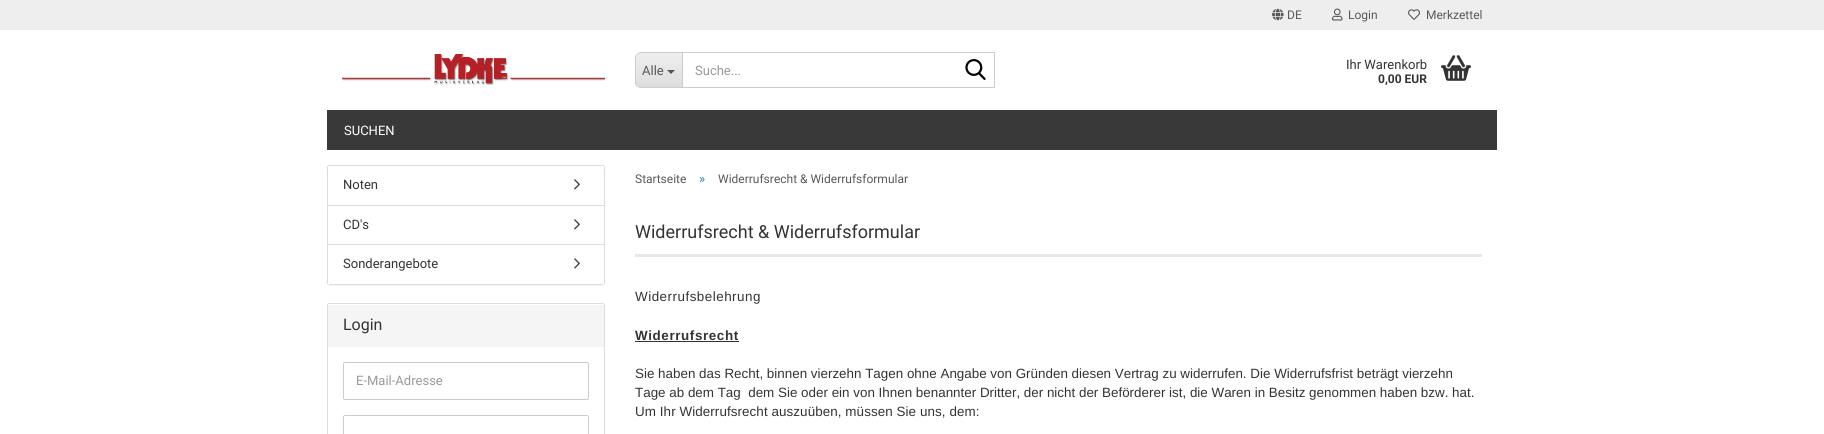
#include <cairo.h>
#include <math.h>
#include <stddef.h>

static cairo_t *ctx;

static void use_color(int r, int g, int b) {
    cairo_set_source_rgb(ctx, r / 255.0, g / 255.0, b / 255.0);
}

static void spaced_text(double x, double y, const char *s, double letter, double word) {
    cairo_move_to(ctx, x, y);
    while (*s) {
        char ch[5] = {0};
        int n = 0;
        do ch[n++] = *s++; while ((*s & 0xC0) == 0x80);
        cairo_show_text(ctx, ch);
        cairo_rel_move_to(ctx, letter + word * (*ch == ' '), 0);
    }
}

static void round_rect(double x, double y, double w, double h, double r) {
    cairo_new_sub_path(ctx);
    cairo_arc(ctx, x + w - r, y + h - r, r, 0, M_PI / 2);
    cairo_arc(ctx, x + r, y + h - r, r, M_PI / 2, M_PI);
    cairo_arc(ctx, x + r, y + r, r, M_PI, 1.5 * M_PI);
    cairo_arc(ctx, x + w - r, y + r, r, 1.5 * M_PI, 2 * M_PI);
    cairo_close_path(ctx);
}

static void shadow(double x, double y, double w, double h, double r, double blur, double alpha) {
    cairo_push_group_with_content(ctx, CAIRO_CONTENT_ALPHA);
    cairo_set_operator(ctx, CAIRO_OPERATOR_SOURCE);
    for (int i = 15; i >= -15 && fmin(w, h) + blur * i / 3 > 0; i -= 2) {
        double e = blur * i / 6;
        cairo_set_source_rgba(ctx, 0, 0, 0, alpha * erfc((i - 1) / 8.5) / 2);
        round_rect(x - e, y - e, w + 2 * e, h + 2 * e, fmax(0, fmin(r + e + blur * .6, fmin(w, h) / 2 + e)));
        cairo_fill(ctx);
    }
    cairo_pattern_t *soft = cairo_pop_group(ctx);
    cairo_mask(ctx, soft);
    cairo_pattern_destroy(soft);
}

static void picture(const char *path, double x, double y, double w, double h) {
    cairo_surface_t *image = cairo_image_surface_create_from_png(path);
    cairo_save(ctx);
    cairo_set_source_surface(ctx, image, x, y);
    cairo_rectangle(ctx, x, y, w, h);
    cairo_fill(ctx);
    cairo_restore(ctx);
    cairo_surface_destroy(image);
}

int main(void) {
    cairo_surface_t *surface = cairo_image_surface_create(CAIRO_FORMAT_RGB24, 1824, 434);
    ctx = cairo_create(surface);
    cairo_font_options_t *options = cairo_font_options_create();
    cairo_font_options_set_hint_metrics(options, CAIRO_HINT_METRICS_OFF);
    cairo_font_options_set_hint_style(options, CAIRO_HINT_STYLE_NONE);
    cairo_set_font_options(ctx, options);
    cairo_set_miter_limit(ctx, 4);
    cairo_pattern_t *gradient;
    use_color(255, 255, 255);
    cairo_paint(ctx);
    use_color(238, 238, 238);
    cairo_rectangle(ctx, 0, 0, 1824, 30);
    cairo_fill(ctx);
    picture("img1.png", 1272, 8, 12, 13);
    cairo_select_font_face(ctx, "Roboto", CAIRO_FONT_SLANT_NORMAL, CAIRO_FONT_WEIGHT_NORMAL);
    cairo_set_font_size(ctx, 12);
    use_color(89, 89, 89);
    cairo_move_to(ctx, 1287, 19);
    cairo_show_text(ctx, "DE");
    picture("img2.png", 1332, 8, 11, 13);
    cairo_move_to(ctx, 1348, 19);
    cairo_show_text(ctx, "Login");
    picture("img3.png", 1408, 9, 12, 11);
    cairo_move_to(ctx, 1426, 19);
    cairo_show_text(ctx, "Merkzettel");
    picture("img4.png", 342, 54, 263, 31);
    cairo_save(ctx);
    cairo_new_path(ctx);
    cairo_move_to(ctx, 641, 52);
    cairo_line_to(ctx, 682, 52);
    cairo_line_to(ctx, 682, 88);
    cairo_line_to(ctx, 641, 88);
    cairo_curve_to(ctx, 637.5, 88, 635, 85.5, 635, 82);
    cairo_line_to(ctx, 635, 58);
    cairo_curve_to(ctx, 635, 54.5, 637.5, 52, 641, 52);
    cairo_close_path(ctx);
    cairo_clip(ctx);
    gradient = cairo_pattern_create_linear(659, 53, 659, 87);
    cairo_pattern_add_color_stop_rgba(gradient, 0, 0.933, 0.933, 0.933, 1);
    cairo_pattern_add_color_stop_rgba(gradient, 1, 0.871, 0.871, 0.871, 1);
    cairo_set_source(ctx, gradient);
    cairo_pattern_destroy(gradient);
    cairo_rectangle(ctx, 635, 53, 47, 34);
    cairo_fill(ctx);
    cairo_restore(ctx);
    use_color(204, 204, 204);
    cairo_set_fill_rule(ctx, CAIRO_FILL_RULE_EVEN_ODD);
    cairo_new_path(ctx);
    cairo_move_to(ctx, 641, 52);
    cairo_line_to(ctx, 682, 52);
    cairo_line_to(ctx, 682, 88);
    cairo_line_to(ctx, 641, 88);
    cairo_curve_to(ctx, 638, 88, 635, 85, 635, 82);
    cairo_line_to(ctx, 635, 58);
    cairo_curve_to(ctx, 635, 55, 638, 52, 641, 52);
    cairo_close_path(ctx);
    cairo_move_to(ctx, 641, 53);
    cairo_line_to(ctx, 682, 53);
    cairo_line_to(ctx, 682, 87);
    cairo_line_to(ctx, 641, 87);
    cairo_curve_to(ctx, 638, 87, 636, 85, 636, 82);
    cairo_line_to(ctx, 636, 58);
    cairo_curve_to(ctx, 636, 55, 638, 53, 641, 53);
    cairo_close_path(ctx);
    cairo_fill(ctx);
    cairo_set_font_size(ctx, 13);
    use_color(89, 89, 89);
    cairo_move_to(ctx, 642, 75);
    cairo_show_text(ctx, "Alle");
    use_color(85, 85, 85);
    cairo_set_fill_rule(ctx, CAIRO_FILL_RULE_WINDING);
    cairo_new_path(ctx);
    cairo_move_to(ctx, 667, 70);
    cairo_line_to(ctx, 675, 70);
    cairo_line_to(ctx, 671, 74);
    cairo_close_path(ctx);
    cairo_fill(ctx);
    cairo_rectangle(ctx, 682.5, 52.5, 312, 35);
    use_color(204, 204, 204);
    cairo_set_line_width(ctx, 1);
    cairo_stroke(ctx);
    use_color(153, 153, 153);
    cairo_move_to(ctx, 695, 75);
    cairo_show_text(ctx, "Suche...");
    picture("img5.png", 965, 59, 21, 21);
    use_color(51, 51, 51);
    cairo_move_to(ctx, 1346, 69);
    cairo_show_text(ctx, "Ihr Warenkorb");
    cairo_select_font_face(ctx, "Roboto", CAIRO_FONT_SLANT_NORMAL, CAIRO_FONT_WEIGHT_BOLD);
    cairo_set_font_size(ctx, 12);
    cairo_move_to(ctx, 1378, 83);
    cairo_show_text(ctx, "0,00 EUR");
    picture("img6.png", 1441, 55, 30, 26);
    use_color(57, 57, 57);
    cairo_rectangle(ctx, 327, 110, 1170, 40);
    cairo_fill(ctx);
    cairo_select_font_face(ctx, "Roboto", CAIRO_FONT_SLANT_NORMAL, CAIRO_FONT_WEIGHT_NORMAL);
    cairo_set_font_size(ctx, 13);
    use_color(255, 255, 255);
    cairo_move_to(ctx, 344, 135);
    cairo_show_text(ctx, "SUCHEN");
    use_color(0, 0, 0);
    shadow(327, 166, 278, 120, 2, 0.5, 0.05);
    use_color(255, 255, 255);
    round_rect(327, 165, 278, 120, 2);
    cairo_fill(ctx);
    use_color(221, 221, 221);
    cairo_rectangle(ctx, 328, 165, 276, 1);
    cairo_fill(ctx);
    cairo_rectangle(ctx, 604, 166, 1, 118);
    cairo_fill(ctx);
    cairo_rectangle(ctx, 327, 166, 1, 118);
    cairo_fill(ctx);
    cairo_rectangle(ctx, 328, 205, 276, 1);
    cairo_fill(ctx);
    use_color(51, 51, 51);
    cairo_move_to(ctx, 343, 189);
    cairo_show_text(ctx, "Noten");
    picture("img7.png", 574, 179, 6, 11);
    use_color(221, 221, 221);
    cairo_rectangle(ctx, 328, 244, 276, 1);
    cairo_fill(ctx);
    use_color(51, 51, 51);
    cairo_move_to(ctx, 343, 229);
    cairo_show_text(ctx, "CD's");
    picture("img7.png", 574, 219, 6, 11);
    use_color(221, 221, 221);
    cairo_rectangle(ctx, 329, 284, 274, 1);
    cairo_fill(ctx);
    use_color(51, 51, 51);
    cairo_move_to(ctx, 343, 268);
    cairo_show_text(ctx, "Sonderangebote");
    picture("img7.png", 574, 258, 6, 11);
    round_rect(327.5, 303.5, 277, 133, 1.5);
    use_color(221, 221, 221);
    cairo_stroke(ctx);
    use_color(245, 245, 245);
    cairo_new_path(ctx);
    cairo_move_to(ctx, 329, 304);
    cairo_line_to(ctx, 603, 304);
    cairo_curve_to(ctx, 603.5, 304, 604, 304.5, 604, 305);
    cairo_line_to(ctx, 604, 347);
    cairo_line_to(ctx, 328, 347);
    cairo_line_to(ctx, 328, 305);
    cairo_curve_to(ctx, 328, 304.5, 328.5, 304, 329, 304);
    cairo_close_path(ctx);
    cairo_fill(ctx);
    use_color(255, 255, 255);
    cairo_new_path(ctx);
    cairo_move_to(ctx, 329, 305);
    cairo_line_to(ctx, 603, 305);
    cairo_curve_to(ctx, 604, 305, 604, 305, 604, 306);
    cairo_curve_to(ctx, 604, 305, 604, 304, 603, 304);
    cairo_line_to(ctx, 329, 304);
    cairo_line_to(ctx, 328, 304);
    cairo_line_to(ctx, 328, 306);
    cairo_close_path(ctx);
    cairo_fill(ctx);
    cairo_set_font_size(ctx, 16);
    use_color(51, 51, 51);
    cairo_move_to(ctx, 343, 330);
    cairo_show_text(ctx, "Login");
    round_rect(343.5, 362.5, 245, 37, 1.5);
    use_color(204, 204, 204);
    cairo_stroke(ctx);
    cairo_set_font_size(ctx, 13);
    use_color(153, 153, 153);
    cairo_move_to(ctx, 356, 385);
    cairo_show_text(ctx, "E-Mail-Adresse");
    round_rect(343.5, 415.5, 245, 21, 1.5);
    use_color(204, 204, 204);
    cairo_stroke(ctx);
    cairo_set_font_size(ctx, 12);
    use_color(89, 89, 89);
    cairo_move_to(ctx, 635, 183);
    cairo_show_text(ctx, "Startseite");
    cairo_set_font_size(ctx, 13);
    use_color(51, 122, 183);
    cairo_move_to(ctx, 699, 183);
    cairo_show_text(ctx, "»");
    cairo_set_font_size(ctx, 12);
    use_color(89, 89, 89);
    cairo_move_to(ctx, 718, 183);
    cairo_show_text(ctx, "Widerrufsrecht & Widerrufsformular");
    use_color(231, 231, 231);
    cairo_rectangle(ctx, 635, 254, 847, 3);
    cairo_fill(ctx);
    cairo_set_font_size(ctx, 18);
    use_color(51, 51, 51);
    cairo_move_to(ctx, 635, 238);
    cairo_show_text(ctx, "Widerrufsrecht & Widerrufsformular");
    cairo_select_font_face(ctx, "Liberation Sans", CAIRO_FONT_SLANT_NORMAL, CAIRO_FONT_WEIGHT_NORMAL);
    cairo_set_font_size(ctx, 13.4);
    spaced_text(635, 301, "Widerrufsbelehrung", 0.5, 0);
    cairo_select_font_face(ctx, "Liberation Sans", CAIRO_FONT_SLANT_NORMAL, CAIRO_FONT_WEIGHT_BOLD);
    spaced_text(635, 340, "Widerrufsrecht", 0.6, 0);
    cairo_rectangle(ctx, 635, 341, 104, 1);
    cairo_fill(ctx);
    cairo_select_font_face(ctx, "Liberation Sans", CAIRO_FONT_SLANT_NORMAL, CAIRO_FONT_WEIGHT_NORMAL);
    cairo_move_to(ctx, 635, 378);
    cairo_show_text(ctx, "Sie haben das Recht, binnen vierzehn Tagen ohne Angabe von Gründen diesen Vertrag zu widerrufen. Die Widerrufsfrist beträgt vierzehn");
    cairo_move_to(ctx, 635, 397);
    cairo_show_text(ctx, "Tage ab dem Tag  dem Sie oder ein von Ihnen benannter Dritter, der nicht der Beförderer ist, die Waren in Besitz genommen haben bzw. hat.");
    spaced_text(635, 416, "Um Ihr Widerrufsrecht auszuüben, müssen Sie uns, dem:", 0.08, 0);
    cairo_surface_write_to_png(surface, "result.png");
    cairo_font_options_destroy(options);
    cairo_destroy(ctx);
    cairo_surface_destroy(surface);
    return 0;
}
